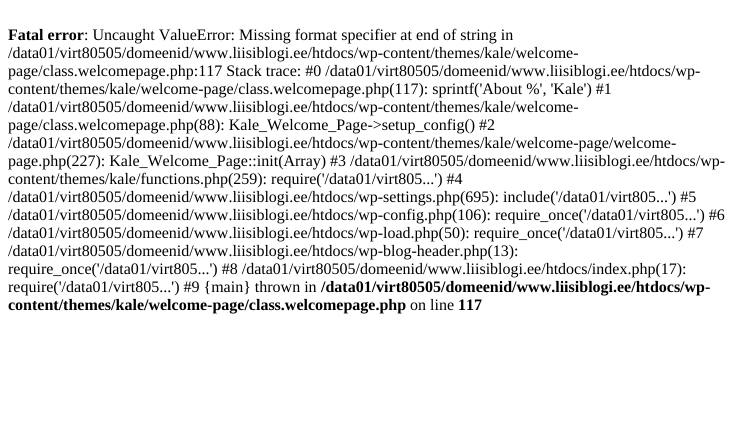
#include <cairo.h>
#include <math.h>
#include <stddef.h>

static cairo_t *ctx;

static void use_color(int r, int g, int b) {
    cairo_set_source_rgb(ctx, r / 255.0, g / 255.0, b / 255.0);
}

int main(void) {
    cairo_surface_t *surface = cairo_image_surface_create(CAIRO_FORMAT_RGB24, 734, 430);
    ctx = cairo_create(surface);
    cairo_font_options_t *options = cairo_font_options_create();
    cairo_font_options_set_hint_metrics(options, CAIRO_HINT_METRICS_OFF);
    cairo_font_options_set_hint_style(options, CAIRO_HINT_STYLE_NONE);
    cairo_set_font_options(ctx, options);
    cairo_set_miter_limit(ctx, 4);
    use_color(255, 255, 255);
    cairo_paint(ctx);
    cairo_select_font_face(ctx, "Liberation Serif", CAIRO_FONT_SLANT_NORMAL, CAIRO_FONT_WEIGHT_BOLD);
    cairo_set_font_size(ctx, 16);
    use_color(0, 0, 0);
    cairo_move_to(ctx, 8, 40);
    cairo_show_text(ctx, "Fatal error");
    cairo_select_font_face(ctx, "Liberation Serif", CAIRO_FONT_SLANT_NORMAL, CAIRO_FONT_WEIGHT_NORMAL);
    cairo_move_to(ctx, 84, 40);
    cairo_show_text(ctx, ": Uncaught ValueError: Missing format specifier at end of string in");
    cairo_move_to(ctx, 8, 58);
    cairo_show_text(ctx, "/data01/virt80505/domeenid/www.liisiblogi.ee/htdocs/wp-content/themes/kale/welcome-");
    cairo_move_to(ctx, 8, 76);
    cairo_show_text(ctx, "page/class.welcomepage.php:117 Stack trace: #0 /data01/virt80505/domeenid/www.liisiblogi.ee/htdocs/wp-");
    cairo_move_to(ctx, 8, 94);
    cairo_show_text(ctx, "content/themes/kale/welcome-page/class.welcomepage.php(117): sprintf('About %', 'Kale') #1");
    cairo_move_to(ctx, 8, 112);
    cairo_show_text(ctx, "/data01/virt80505/domeenid/www.liisiblogi.ee/htdocs/wp-content/themes/kale/welcome-");
    cairo_move_to(ctx, 8, 130);
    cairo_show_text(ctx, "page/class.welcomepage.php(88): Kale_Welcome_Page->setup_config() #2");
    cairo_move_to(ctx, 8, 148);
    cairo_show_text(ctx, "/data01/virt80505/domeenid/www.liisiblogi.ee/htdocs/wp-content/themes/kale/welcome-page/welcome-");
    cairo_move_to(ctx, 8, 166);
    cairo_show_text(ctx, "page.php(227): Kale_Welcome_Page::init(Array) #3 /data01/virt80505/domeenid/www.liisiblogi.ee/htdocs/wp-");
    cairo_move_to(ctx, 8, 184);
    cairo_show_text(ctx, "content/themes/kale/functions.php(259): require('/data01/virt805...') #4");
    cairo_move_to(ctx, 8, 202);
    cairo_show_text(ctx, "/data01/virt80505/domeenid/www.liisiblogi.ee/htdocs/wp-settings.php(695): include('/data01/virt805...') #5");
    cairo_move_to(ctx, 8, 220);
    cairo_show_text(ctx, "/data01/virt80505/domeenid/www.liisiblogi.ee/htdocs/wp-config.php(106): require_once('/data01/virt805...') #6");
    cairo_move_to(ctx, 8, 238);
    cairo_show_text(ctx, "/data01/virt80505/domeenid/www.liisiblogi.ee/htdocs/wp-load.php(50): require_once('/data01/virt805...') #7");
    cairo_move_to(ctx, 8, 256);
    cairo_show_text(ctx, "/data01/virt80505/domeenid/www.liisiblogi.ee/htdocs/wp-blog-header.php(13):");
    cairo_move_to(ctx, 8, 274);
    cairo_show_text(ctx, "require_once('/data01/virt805...') #8 /data01/virt80505/domeenid/www.liisiblogi.ee/htdocs/index.php(17):");
    cairo_move_to(ctx, 8, 292);
    cairo_show_text(ctx, "require('/data01/virt805...') #9 {main} thrown in");
    cairo_select_font_face(ctx, "Liberation Serif", CAIRO_FONT_SLANT_NORMAL, CAIRO_FONT_WEIGHT_BOLD);
    cairo_move_to(ctx, 321, 292);
    cairo_show_text(ctx, "/data01/virt80505/domeenid/www.liisiblogi.ee/htdocs/wp-");
    cairo_move_to(ctx, 8, 310);
    cairo_show_text(ctx, "content/themes/kale/welcome-page/class.welcomepage.php");
    cairo_select_font_face(ctx, "Liberation Serif", CAIRO_FONT_SLANT_NORMAL, CAIRO_FONT_WEIGHT_NORMAL);
    cairo_move_to(ctx, 410, 310);
    cairo_show_text(ctx, "on line");
    cairo_select_font_face(ctx, "Liberation Serif", CAIRO_FONT_SLANT_NORMAL, CAIRO_FONT_WEIGHT_BOLD);
    cairo_move_to(ctx, 458, 310);
    cairo_show_text(ctx, "117");
    cairo_surface_write_to_png(surface, "result.png");
    cairo_font_options_destroy(options);
    cairo_destroy(ctx);
    cairo_surface_destroy(surface);
    return 0;
}
